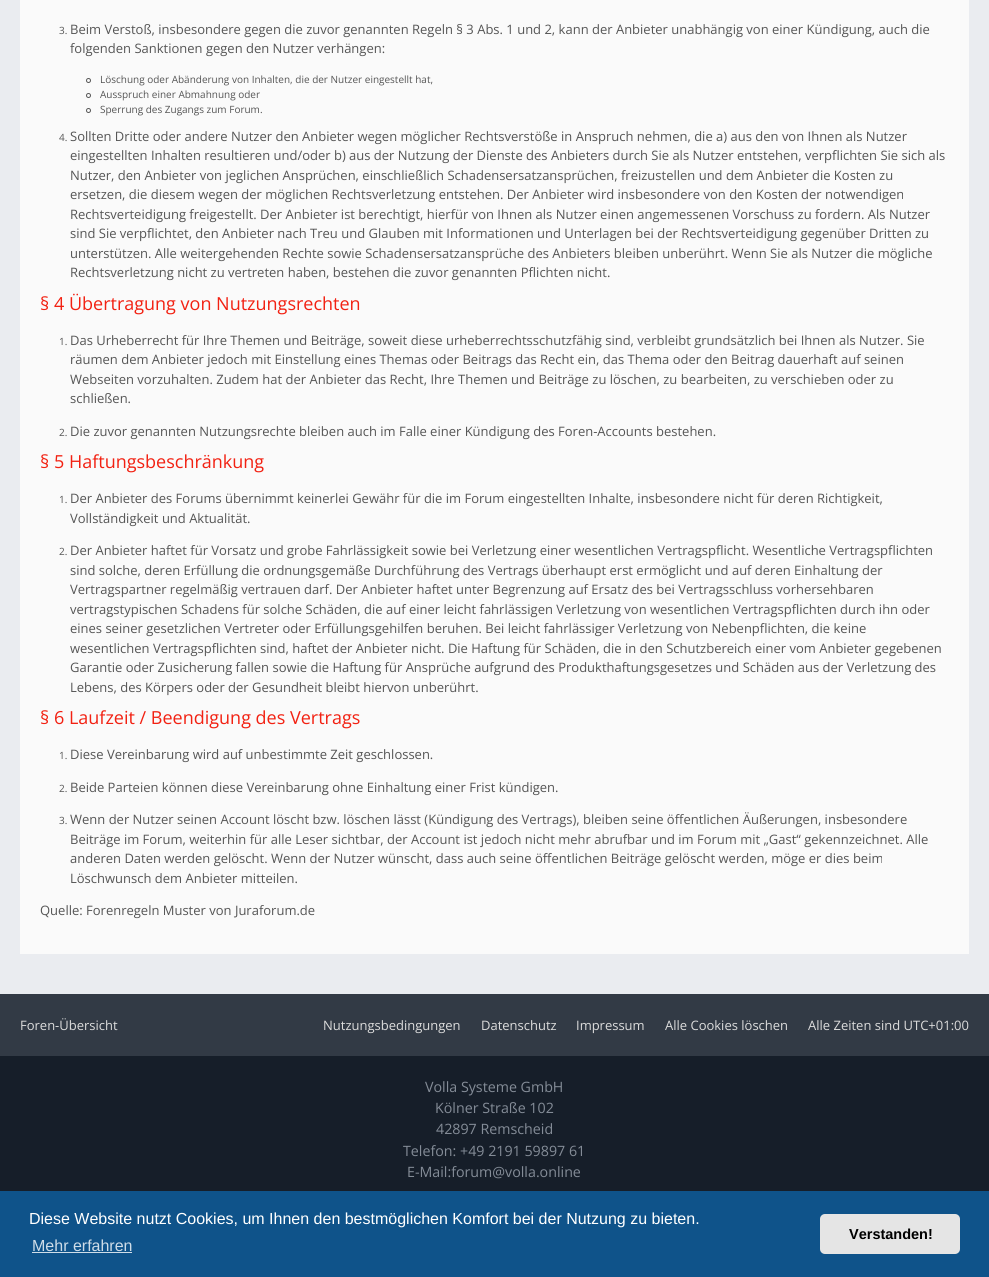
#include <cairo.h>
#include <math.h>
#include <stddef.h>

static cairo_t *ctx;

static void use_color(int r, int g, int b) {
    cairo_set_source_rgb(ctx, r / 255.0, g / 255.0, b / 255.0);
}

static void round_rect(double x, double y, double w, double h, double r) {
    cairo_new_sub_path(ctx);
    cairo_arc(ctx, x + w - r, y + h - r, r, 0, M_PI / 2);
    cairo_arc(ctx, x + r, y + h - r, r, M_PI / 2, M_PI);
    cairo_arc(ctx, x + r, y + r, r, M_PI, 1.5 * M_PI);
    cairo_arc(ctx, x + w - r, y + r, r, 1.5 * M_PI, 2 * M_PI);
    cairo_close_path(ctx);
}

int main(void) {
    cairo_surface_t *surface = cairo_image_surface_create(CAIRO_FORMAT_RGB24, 989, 1277);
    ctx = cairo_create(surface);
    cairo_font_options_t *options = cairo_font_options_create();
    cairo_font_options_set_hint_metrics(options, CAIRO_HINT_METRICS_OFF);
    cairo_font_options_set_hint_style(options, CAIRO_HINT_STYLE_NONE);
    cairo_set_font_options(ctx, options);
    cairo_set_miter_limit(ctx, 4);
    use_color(234, 236, 240);
    cairo_paint(ctx);
    use_color(250, 250, 250);
    cairo_rectangle(ctx, 20, 0, 949, 954);
    cairo_fill(ctx);
    cairo_select_font_face(ctx, "Open Sans", CAIRO_FONT_SLANT_NORMAL, CAIRO_FONT_WEIGHT_NORMAL);
    cairo_set_font_size(ctx, 10);
    use_color(85, 85, 85);
    cairo_move_to(ctx, 59, 34);
    cairo_show_text(ctx, "3.");
    cairo_set_font_size(ctx, 13);
    cairo_move_to(ctx, 70, 34);
    cairo_show_text(ctx, "Beim Verstoß, insbesondere gegen die zuvor genannten Regeln § 3 Abs. 1 und 2, kann der Anbieter unabhängig von einer Kündigung, auch die");
    cairo_move_to(ctx, 70, 53);
    cairo_show_text(ctx, "folgenden Sanktionen gegen den Nutzer verhängen:");
    cairo_new_path(ctx);
    cairo_arc(ctx, 88.5, 80.5, 2, 0, 2 * M_PI);
    cairo_set_line_width(ctx, 1);
    cairo_stroke(ctx);
    cairo_set_font_size(ctx, 10);
    cairo_move_to(ctx, 100, 83);
    cairo_show_text(ctx, "Löschung oder Abänderung von Inhalten, die der Nutzer eingestellt hat,");
    cairo_new_path(ctx);
    cairo_arc(ctx, 88.5, 95.5, 2, 0, 2 * M_PI);
    cairo_stroke(ctx);
    cairo_move_to(ctx, 100, 98);
    cairo_show_text(ctx, "Ausspruch einer Abmahnung oder");
    cairo_new_path(ctx);
    cairo_arc(ctx, 88.5, 110.5, 2, 0, 2 * M_PI);
    cairo_stroke(ctx);
    cairo_move_to(ctx, 100, 113);
    cairo_show_text(ctx, "Sperrung des Zugangs zum Forum.");
    cairo_move_to(ctx, 59, 141);
    cairo_show_text(ctx, "4.");
    cairo_set_font_size(ctx, 13);
    cairo_move_to(ctx, 70, 141);
    cairo_show_text(ctx, "Sollten Dritte oder andere Nutzer den Anbieter wegen möglicher Rechtsverstöße in Anspruch nehmen, die a) aus den von Ihnen als Nutzer");
    cairo_move_to(ctx, 70, 160);
    cairo_show_text(ctx, "eingestellten Inhalten resultieren und/oder b) aus der Nutzung der Dienste des Anbieters durch Sie als Nutzer entstehen, verpflichten Sie sich als");
    cairo_move_to(ctx, 70, 180);
    cairo_show_text(ctx, "Nutzer, den Anbieter von jeglichen Ansprüchen, einschließlich Schadensersatzansprüchen, freizustellen und dem Anbieter die Kosten zu");
    cairo_move_to(ctx, 70, 199);
    cairo_show_text(ctx, "ersetzen, die diesem wegen der möglichen Rechtsverletzung entstehen. Der Anbieter wird insbesondere von den Kosten der notwendigen");
    cairo_move_to(ctx, 70, 219);
    cairo_show_text(ctx, "Rechtsverteidigung freigestellt. Der Anbieter ist berechtigt, hierfür von Ihnen als Nutzer einen angemessenen Vorschuss zu fordern. Als Nutzer");
    cairo_move_to(ctx, 70, 238);
    cairo_show_text(ctx, "sind Sie verpflichtet, den Anbieter nach Treu und Glauben mit Informationen und Unterlagen bei der Rechtsverteidigung gegenüber Dritten zu");
    cairo_move_to(ctx, 70, 258);
    cairo_show_text(ctx, "unterstützen. Alle weitergehenden Rechte sowie Schadensersatzansprüche des Anbieters bleiben unberührt. Wenn Sie als Nutzer die mögliche");
    cairo_move_to(ctx, 70, 277);
    cairo_show_text(ctx, "Rechtsverletzung nicht zu vertreten haben, bestehen die zuvor genannten Pflichten nicht.");
    cairo_set_font_size(ctx, 18);
    use_color(242, 33, 18);
    cairo_move_to(ctx, 40, 310);
    cairo_show_text(ctx, "§ 4 Übertragung von Nutzungsrechten");
    cairo_set_font_size(ctx, 10);
    use_color(85, 85, 85);
    cairo_move_to(ctx, 59, 345);
    cairo_show_text(ctx, "1.");
    cairo_set_font_size(ctx, 13);
    cairo_move_to(ctx, 70, 345);
    cairo_show_text(ctx, "Das Urheberrecht für Ihre Themen und Beiträge, soweit diese urheberrechtsschutzfähig sind, verbleibt grundsätzlich bei Ihnen als Nutzer. Sie");
    cairo_move_to(ctx, 70, 364);
    cairo_show_text(ctx, "räumen dem Anbieter jedoch mit Einstellung eines Themas oder Beitrags das Recht ein, das Thema oder den Beitrag dauerhaft auf seinen");
    cairo_move_to(ctx, 70, 384);
    cairo_show_text(ctx, "Webseiten vorzuhalten. Zudem hat der Anbieter das Recht, Ihre Themen und Beiträge zu löschen, zu bearbeiten, zu verschieben oder zu");
    cairo_move_to(ctx, 70, 403);
    cairo_show_text(ctx, "schließen.");
    cairo_set_font_size(ctx, 10);
    cairo_move_to(ctx, 59, 436);
    cairo_show_text(ctx, "2.");
    cairo_set_font_size(ctx, 13);
    cairo_move_to(ctx, 70, 436);
    cairo_show_text(ctx, "Die zuvor genannten Nutzungsrechte bleiben auch im Falle einer Kündigung des Foren-Accounts bestehen.");
    cairo_set_font_size(ctx, 18);
    use_color(242, 33, 18);
    cairo_move_to(ctx, 40, 468);
    cairo_show_text(ctx, "§ 5 Haftungsbeschränkung");
    cairo_set_font_size(ctx, 10);
    use_color(85, 85, 85);
    cairo_move_to(ctx, 59, 503);
    cairo_show_text(ctx, "1.");
    cairo_set_font_size(ctx, 13);
    cairo_move_to(ctx, 70, 503);
    cairo_show_text(ctx, "Der Anbieter des Forums übernimmt keinerlei Gewähr für die im Forum eingestellten Inhalte, insbesondere nicht für deren Richtigkeit,");
    cairo_move_to(ctx, 70, 523);
    cairo_show_text(ctx, "Vollständigkeit und Aktualität.");
    cairo_set_font_size(ctx, 10);
    cairo_move_to(ctx, 59, 555);
    cairo_show_text(ctx, "2.");
    cairo_set_font_size(ctx, 13);
    cairo_move_to(ctx, 70, 555);
    cairo_show_text(ctx, "Der Anbieter haftet für Vorsatz und grobe Fahrlässigkeit sowie bei Verletzung einer wesentlichen Vertragspflicht. Wesentliche Vertragspflichten");
    cairo_move_to(ctx, 70, 575);
    cairo_show_text(ctx, "sind solche, deren Erfüllung die ordnungsgemäße Durchführung des Vertrags überhaupt erst ermöglicht und auf deren Einhaltung der");
    cairo_move_to(ctx, 70, 594);
    cairo_show_text(ctx, "Vertragspartner regelmäßig vertrauen darf. Der Anbieter haftet unter Begrenzung auf Ersatz des bei Vertragsschluss vorhersehbaren");
    cairo_move_to(ctx, 70, 614);
    cairo_show_text(ctx, "vertragstypischen Schadens für solche Schäden, die auf einer leicht fahrlässigen Verletzung von wesentlichen Vertragspflichten durch ihn oder");
    cairo_move_to(ctx, 70, 633);
    cairo_show_text(ctx, "eines seiner gesetzlichen Vertreter oder Erfüllungsgehilfen beruhen. Bei leicht fahrlässiger Verletzung von Nebenpflichten, die keine");
    cairo_move_to(ctx, 70, 653);
    cairo_show_text(ctx, "wesentlichen Vertragspflichten sind, haftet der Anbieter nicht. Die Haftung für Schäden, die in den Schutzbereich einer vom Anbieter gegebenen");
    cairo_move_to(ctx, 70, 672);
    cairo_show_text(ctx, "Garantie oder Zusicherung fallen sowie die Haftung für Ansprüche aufgrund des Produkthaftungsgesetzes und Schäden aus der Verletzung des");
    cairo_move_to(ctx, 70, 692);
    cairo_show_text(ctx, "Lebens, des Körpers oder der Gesundheit bleibt hiervon unberührt.");
    cairo_set_font_size(ctx, 18);
    use_color(242, 33, 18);
    cairo_move_to(ctx, 40, 724);
    cairo_show_text(ctx, "§ 6 Laufzeit / Beendigung des Vertrags");
    cairo_set_font_size(ctx, 10);
    use_color(85, 85, 85);
    cairo_move_to(ctx, 59, 759);
    cairo_show_text(ctx, "1.");
    cairo_set_font_size(ctx, 13);
    cairo_move_to(ctx, 70, 759);
    cairo_show_text(ctx, "Diese Vereinbarung wird auf unbestimmte Zeit geschlossen.");
    cairo_set_font_size(ctx, 10);
    cairo_move_to(ctx, 59, 792);
    cairo_show_text(ctx, "2.");
    cairo_set_font_size(ctx, 13);
    cairo_move_to(ctx, 70, 792);
    cairo_show_text(ctx, "Beide Parteien können diese Vereinbarung ohne Einhaltung einer Frist kündigen.");
    cairo_set_font_size(ctx, 10);
    cairo_move_to(ctx, 59, 824);
    cairo_show_text(ctx, "3.");
    cairo_set_font_size(ctx, 13);
    cairo_move_to(ctx, 70, 824);
    cairo_show_text(ctx, "Wenn der Nutzer seinen Account löscht bzw. löschen lässt (Kündigung des Vertrags), bleiben seine öffentlichen Äußerungen, insbesondere");
    cairo_move_to(ctx, 70, 844);
    cairo_show_text(ctx, "Beiträge im Forum, weiterhin für alle Leser sichtbar, der Account ist jedoch nicht mehr abrufbar und im Forum mit „Gast“ gekennzeichnet. Alle");
    cairo_move_to(ctx, 70, 863);
    cairo_show_text(ctx, "anderen Daten werden gelöscht. Wenn der Nutzer wünscht, dass auch seine öffentlichen Beiträge gelöscht werden, möge er dies beim");
    cairo_move_to(ctx, 70, 883);
    cairo_show_text(ctx, "Löschwunsch dem Anbieter mitteilen.");
    cairo_move_to(ctx, 40, 915);
    cairo_show_text(ctx, "Quelle: Forenregeln Muster von Juraforum.de");
    use_color(50, 58, 69);
    cairo_rectangle(ctx, 0, 994, 989, 62);
    cairo_fill(ctx);
    use_color(220, 220, 220);
    cairo_move_to(ctx, 20, 1030);
    cairo_show_text(ctx, "Foren-Übersicht");
    cairo_move_to(ctx, 323, 1030);
    cairo_show_text(ctx, "Nutzungsbedingungen");
    cairo_move_to(ctx, 481, 1030);
    cairo_show_text(ctx, "Datenschutz");
    cairo_move_to(ctx, 576, 1030);
    cairo_show_text(ctx, "Impressum");
    cairo_move_to(ctx, 665, 1030);
    cairo_show_text(ctx, "Alle Cookies löschen");
    cairo_move_to(ctx, 808, 1030);
    cairo_show_text(ctx, "Alle Zeiten sind UTC+01:00");
    use_color(22, 30, 41);
    cairo_rectangle(ctx, 0, 1056, 989, 135);
    cairo_fill(ctx);
    cairo_set_font_size(ctx, 14.25);
    use_color(132, 140, 151);
    cairo_move_to(ctx, 425, 1092);
    cairo_show_text(ctx, "Volla Systeme GmbH");
    cairo_move_to(ctx, 435, 1113);
    cairo_show_text(ctx, "Kölner Straße 102");
    cairo_move_to(ctx, 436, 1134);
    cairo_show_text(ctx, "42897 Remscheid");
    cairo_move_to(ctx, 403, 1156);
    cairo_show_text(ctx, "Telefon: +49 2191 59897 61");
    cairo_move_to(ctx, 407, 1177);
    cairo_show_text(ctx, "E-Mail:forum@volla.online");
    use_color(15, 83, 138);
    cairo_rectangle(ctx, 0, 1191, 989, 86);
    cairo_fill(ctx);
    cairo_select_font_face(ctx, "Liberation Sans", CAIRO_FONT_SLANT_NORMAL, CAIRO_FONT_WEIGHT_NORMAL);
    cairo_set_font_size(ctx, 16);
    use_color(255, 255, 255);
    cairo_move_to(ctx, 29, 1224);
    cairo_show_text(ctx, "Diese Website nutzt Cookies, um Ihnen den bestmöglichen Komfort bei der Nutzung zu bieten.");
    use_color(207, 221, 232);
    cairo_move_to(ctx, 32, 1251);
    cairo_show_text(ctx, "Mehr erfahren");
    cairo_rectangle(ctx, 32, 1252, 100, 1);
    cairo_fill(ctx);
    use_color(229, 229, 229);
    round_rect(820, 1214, 140, 40, 5);
    cairo_fill(ctx);
    cairo_select_font_face(ctx, "Liberation Sans", CAIRO_FONT_SLANT_NORMAL, CAIRO_FONT_WEIGHT_BOLD);
    cairo_set_font_size(ctx, 14.5);
    use_color(0, 0, 0);
    cairo_move_to(ctx, 849, 1239);
    cairo_show_text(ctx, "Verstanden!");
    cairo_surface_write_to_png(surface, "result.png");
    cairo_font_options_destroy(options);
    cairo_destroy(ctx);
    cairo_surface_destroy(surface);
    return 0;
}
